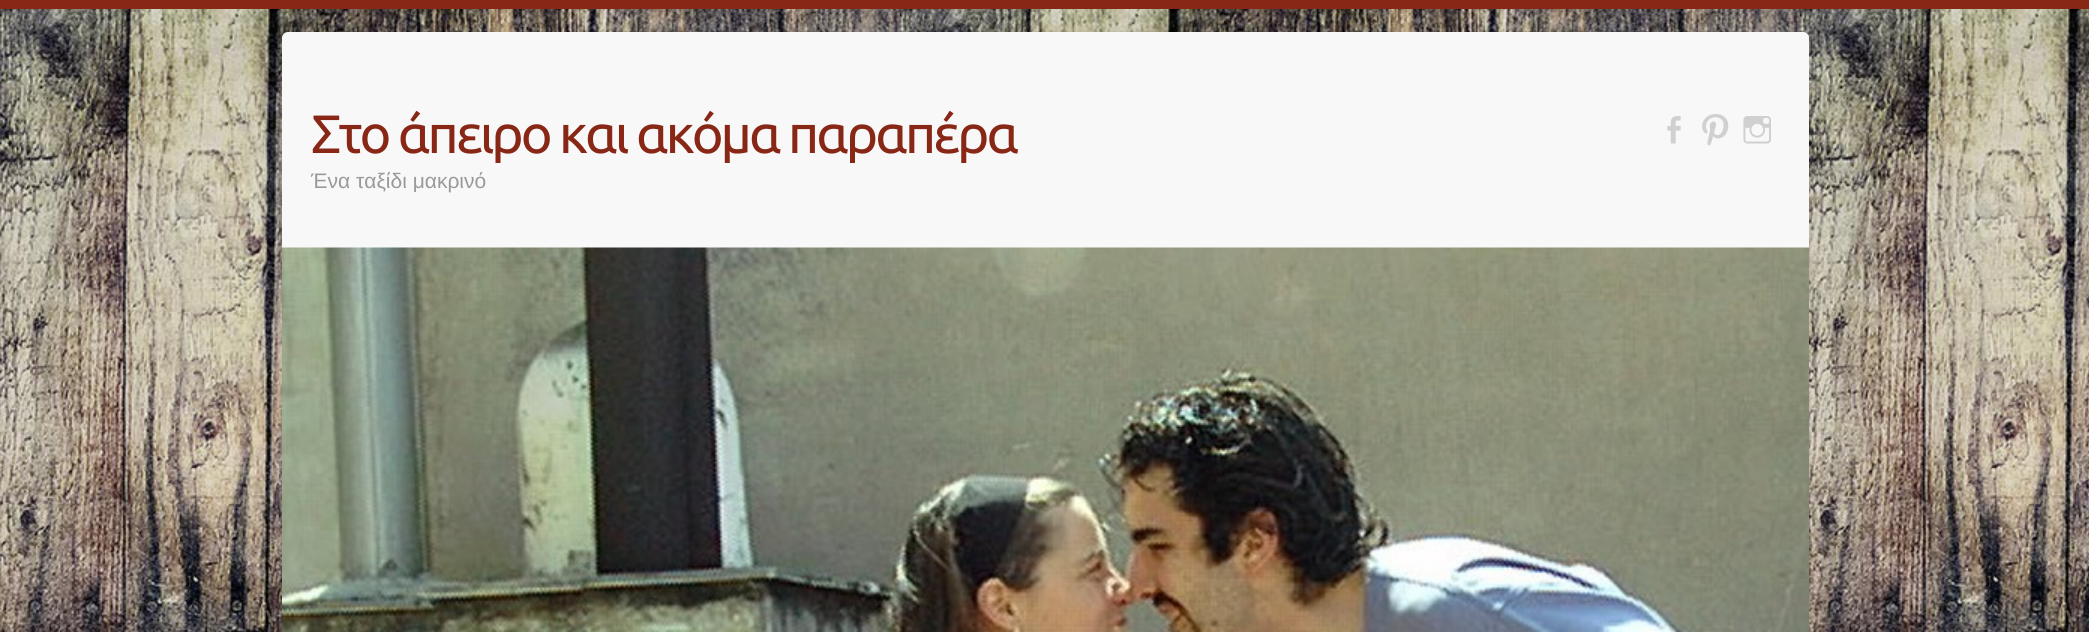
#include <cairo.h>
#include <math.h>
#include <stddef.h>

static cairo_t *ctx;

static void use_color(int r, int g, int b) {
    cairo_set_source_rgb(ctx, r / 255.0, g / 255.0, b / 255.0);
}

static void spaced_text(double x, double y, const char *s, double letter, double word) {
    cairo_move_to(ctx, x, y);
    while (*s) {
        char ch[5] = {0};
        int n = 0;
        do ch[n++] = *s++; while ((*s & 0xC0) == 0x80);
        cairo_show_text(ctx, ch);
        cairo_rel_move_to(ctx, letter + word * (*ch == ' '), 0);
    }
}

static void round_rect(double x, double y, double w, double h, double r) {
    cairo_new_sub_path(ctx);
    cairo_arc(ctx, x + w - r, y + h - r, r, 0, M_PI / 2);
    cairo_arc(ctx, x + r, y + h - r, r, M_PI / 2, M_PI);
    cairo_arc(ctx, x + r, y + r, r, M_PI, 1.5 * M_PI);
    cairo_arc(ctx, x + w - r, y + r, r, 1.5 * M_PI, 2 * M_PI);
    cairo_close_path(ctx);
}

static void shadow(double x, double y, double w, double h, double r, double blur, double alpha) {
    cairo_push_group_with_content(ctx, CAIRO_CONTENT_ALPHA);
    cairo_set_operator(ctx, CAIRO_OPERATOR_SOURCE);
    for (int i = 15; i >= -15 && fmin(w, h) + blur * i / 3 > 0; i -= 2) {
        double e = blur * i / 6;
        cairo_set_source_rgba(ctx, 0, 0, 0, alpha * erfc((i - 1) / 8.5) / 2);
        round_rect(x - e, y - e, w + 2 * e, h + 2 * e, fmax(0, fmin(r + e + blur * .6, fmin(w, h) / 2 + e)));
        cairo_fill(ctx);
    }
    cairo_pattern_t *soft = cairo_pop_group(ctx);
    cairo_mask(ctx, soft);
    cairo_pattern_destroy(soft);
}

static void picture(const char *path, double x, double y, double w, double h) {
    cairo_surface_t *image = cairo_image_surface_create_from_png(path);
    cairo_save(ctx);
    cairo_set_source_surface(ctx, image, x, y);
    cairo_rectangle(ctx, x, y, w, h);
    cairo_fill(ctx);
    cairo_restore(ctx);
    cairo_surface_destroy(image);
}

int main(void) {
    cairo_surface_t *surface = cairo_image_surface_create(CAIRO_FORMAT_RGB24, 2089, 632);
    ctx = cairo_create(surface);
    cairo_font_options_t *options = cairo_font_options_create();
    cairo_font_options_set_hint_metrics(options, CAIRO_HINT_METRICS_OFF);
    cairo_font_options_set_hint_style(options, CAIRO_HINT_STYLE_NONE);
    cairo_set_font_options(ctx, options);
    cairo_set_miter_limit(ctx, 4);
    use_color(255, 255, 255);
    cairo_paint(ctx);
    picture("img1.png", 0, 9, 2089, 623);
    use_color(136, 39, 22);
    cairo_rectangle(ctx, 0, 0, 2089, 9);
    cairo_fill(ctx);
    use_color(0, 0, 0);
    shadow(282, 33, 1527, 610, 6, 1.5, 0.2);
    use_color(248, 248, 248);
    round_rect(282, 32, 1527, 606, 6);
    cairo_fill(ctx);
    cairo_select_font_face(ctx, "Ubuntu", CAIRO_FONT_SLANT_NORMAL, CAIRO_FONT_WEIGHT_NORMAL);
    cairo_set_font_size(ctx, 54);
    use_color(136, 39, 22);
    spaced_text(311, 153, "Στο άπειρο και ακόμα παραπέρα", -3, 0);
    cairo_select_font_face(ctx, "Liberation Sans", CAIRO_FONT_SLANT_NORMAL, CAIRO_FONT_WEIGHT_NORMAL);
    cairo_set_font_size(ctx, 21);
    use_color(153, 153, 153);
    cairo_move_to(ctx, 311, 188);
    cairo_show_text(ctx, "Ένα ταξίδι μακρινό");
    picture("img2.png", 1667, 116, 14, 28);
    picture("img3.png", 1702, 114, 27, 32);
    picture("img4.png", 1743, 116, 28, 28);
    picture("img5.png", 282, 247, 1527, 385);
    cairo_surface_write_to_png(surface, "result.png");
    cairo_font_options_destroy(options);
    cairo_destroy(ctx);
    cairo_surface_destroy(surface);
    return 0;
}
